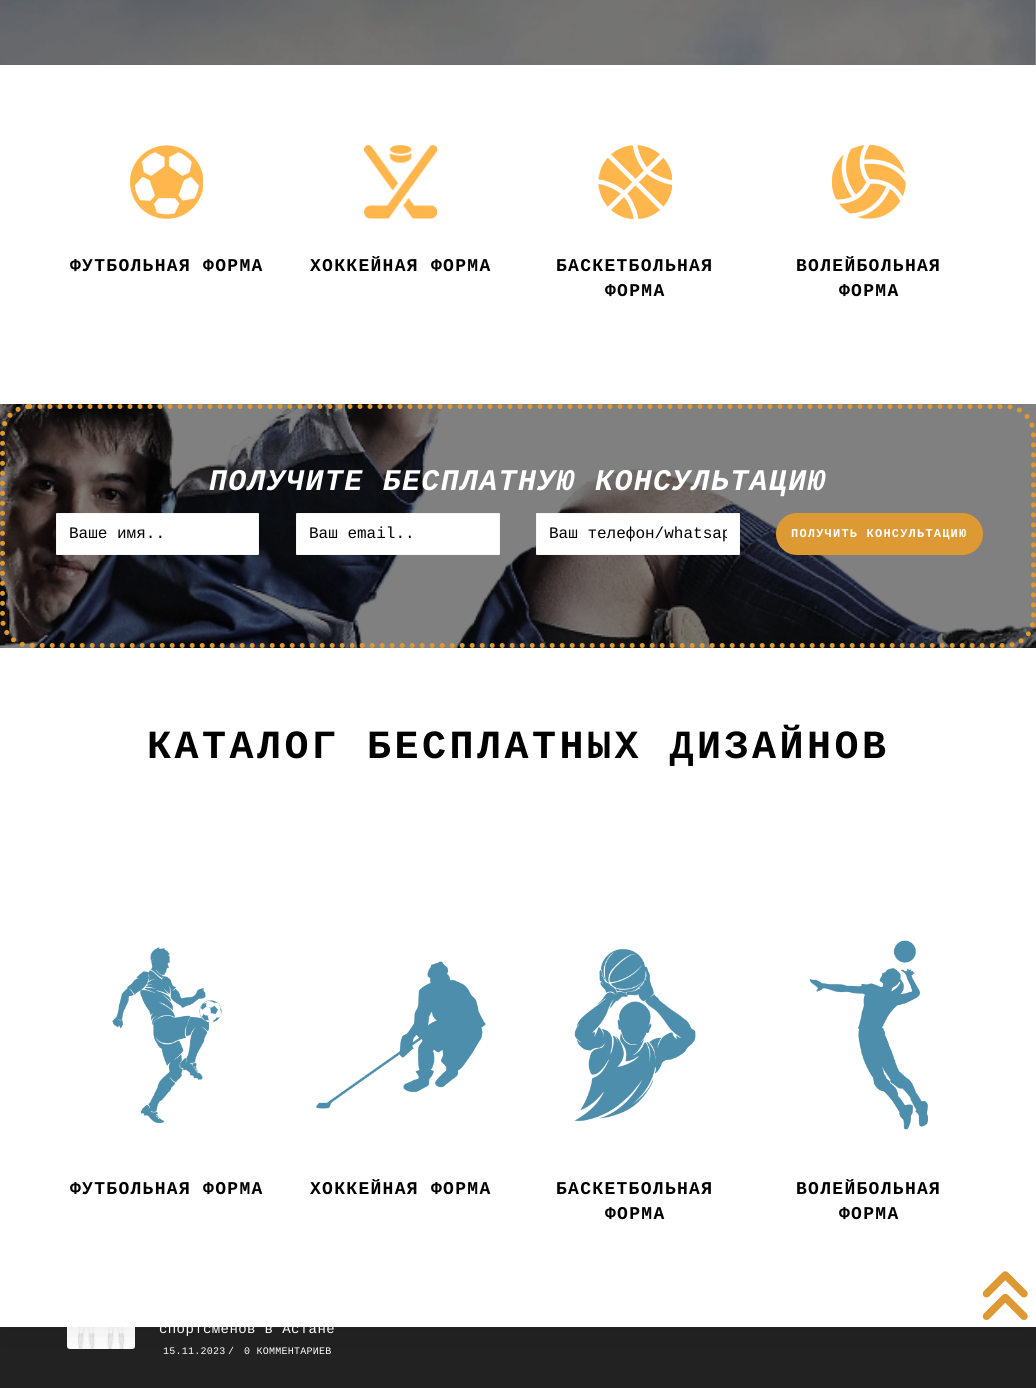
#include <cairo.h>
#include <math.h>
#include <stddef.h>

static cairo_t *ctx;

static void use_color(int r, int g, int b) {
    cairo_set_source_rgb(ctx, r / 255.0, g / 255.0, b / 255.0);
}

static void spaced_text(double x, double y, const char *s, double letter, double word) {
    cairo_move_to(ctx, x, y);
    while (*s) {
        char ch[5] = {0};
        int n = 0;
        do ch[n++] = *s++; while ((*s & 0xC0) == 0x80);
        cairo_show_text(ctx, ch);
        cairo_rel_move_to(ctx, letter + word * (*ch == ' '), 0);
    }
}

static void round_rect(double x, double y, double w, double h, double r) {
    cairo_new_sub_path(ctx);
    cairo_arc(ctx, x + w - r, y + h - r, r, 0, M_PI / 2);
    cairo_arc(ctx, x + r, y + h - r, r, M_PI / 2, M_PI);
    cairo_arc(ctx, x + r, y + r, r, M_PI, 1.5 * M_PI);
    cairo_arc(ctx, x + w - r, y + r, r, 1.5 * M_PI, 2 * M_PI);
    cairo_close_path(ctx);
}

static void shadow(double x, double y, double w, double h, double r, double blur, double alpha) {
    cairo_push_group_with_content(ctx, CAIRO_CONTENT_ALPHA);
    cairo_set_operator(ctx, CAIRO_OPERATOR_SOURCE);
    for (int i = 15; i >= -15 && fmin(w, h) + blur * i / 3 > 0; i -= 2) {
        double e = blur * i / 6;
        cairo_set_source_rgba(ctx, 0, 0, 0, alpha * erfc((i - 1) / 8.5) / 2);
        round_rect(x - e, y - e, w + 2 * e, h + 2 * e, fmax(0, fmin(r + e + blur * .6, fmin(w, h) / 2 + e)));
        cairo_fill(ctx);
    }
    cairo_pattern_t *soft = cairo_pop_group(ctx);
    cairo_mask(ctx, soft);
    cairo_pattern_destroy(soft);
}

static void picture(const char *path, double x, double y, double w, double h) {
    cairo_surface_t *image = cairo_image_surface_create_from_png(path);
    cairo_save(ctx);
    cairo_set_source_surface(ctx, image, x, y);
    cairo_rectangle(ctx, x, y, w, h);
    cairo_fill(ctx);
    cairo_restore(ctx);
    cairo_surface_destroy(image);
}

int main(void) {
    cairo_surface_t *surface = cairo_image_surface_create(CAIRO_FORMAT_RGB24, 1036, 1388);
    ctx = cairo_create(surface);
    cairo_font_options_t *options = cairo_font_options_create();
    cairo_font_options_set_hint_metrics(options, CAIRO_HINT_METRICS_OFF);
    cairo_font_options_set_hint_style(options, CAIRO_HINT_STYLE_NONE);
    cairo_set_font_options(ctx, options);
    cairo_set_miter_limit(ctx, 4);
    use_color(34, 34, 34);
    cairo_paint(ctx);
    picture("img11.png", 67, 1327, 68, 22);
    use_color(0, 0, 0);
    shadow(0, -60, 1036, 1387, 0, 20, 0.1);
    use_color(255, 255, 255);
    cairo_rectangle(ctx, 0, 0, 1036, 1327);
    cairo_fill(ctx);
    use_color(128, 128, 128);
    cairo_rectangle(ctx, 161, 404, 875, 244);
    cairo_fill(ctx);
    picture("img1.png", 0, 0, 1036, 65);
    picture("img2.png", 130, 145, 73, 74);
    cairo_select_font_face(ctx, "Liberation Mono", CAIRO_FONT_SLANT_NORMAL, CAIRO_FONT_WEIGHT_BOLD);
    cairo_set_font_size(ctx, 18);
    use_color(0, 0, 0);
    spaced_text(70, 271, "ФУТБОЛЬНАЯ ФОРМА", 1.3, 0);
    picture("img3.png", 364, 145, 74, 74);
    spaced_text(310, 271, "ХОККЕЙНАЯ ФОРМА", 1.3, 0);
    picture("img4.png", 598, 145, 74, 74);
    spaced_text(556, 271, "БАСКЕТБОЛЬНАЯ", 1.3, 0);
    spaced_text(605, 296, "ФОРМА", 1.3, 0);
    picture("img5.png", 832, 145, 74, 74);
    spaced_text(796, 271, "ВОЛЕЙБОЛЬНАЯ", 1.3, 0);
    spaced_text(839, 296, "ФОРМА", 1.3, 0);
    picture("img6.png", 0, 404, 1036, 244);
    cairo_new_path(ctx);
    cairo_move_to(ctx, 30, 406.5);
    cairo_line_to(ctx, 1006, 406.5);
    cairo_curve_to(ctx, 1021, 406.5, 1033.5, 419, 1033.5, 434);
    cairo_line_to(ctx, 1033.5, 618);
    cairo_curve_to(ctx, 1033.5, 633, 1021, 645.5, 1006, 645.5);
    cairo_line_to(ctx, 30, 645.5);
    cairo_curve_to(ctx, 15, 645.5, 2.5, 633, 2.5, 618);
    cairo_line_to(ctx, 2.5, 434);
    cairo_curve_to(ctx, 2.5, 419, 15, 406.5, 30, 406.5);
    cairo_close_path(ctx);
    use_color(221, 153, 51);
    cairo_set_line_width(ctx, 5);
    cairo_set_line_cap(ctx, CAIRO_LINE_CAP_ROUND);
    cairo_set_dash(ctx, (double[]){0, 10}, 2, 0);
    cairo_stroke(ctx);
    cairo_select_font_face(ctx, "Liberation Mono", CAIRO_FONT_SLANT_ITALIC, CAIRO_FONT_WEIGHT_BOLD);
    cairo_set_font_size(ctx, 30);
    use_color(255, 255, 255);
    spaced_text(209, 490, "ПОЛУЧИТЕ БЕСПЛАТНУЮ КОНСУЛЬТАЦИЮ", 1.3, 0);
    round_rect(56.5, 513.5, 202, 41, 0.5);
    cairo_fill_preserve(ctx);
    use_color(246, 246, 246);
    cairo_set_line_width(ctx, 1);
    cairo_set_line_cap(ctx, CAIRO_LINE_CAP_BUTT);
    cairo_set_dash(ctx, NULL, 0, 0);
    cairo_stroke(ctx);
    cairo_select_font_face(ctx, "Liberation Mono", CAIRO_FONT_SLANT_NORMAL, CAIRO_FONT_WEIGHT_NORMAL);
    cairo_set_font_size(ctx, 16);
    use_color(0, 0, 0);
    cairo_move_to(ctx, 69, 538);
    cairo_show_text(ctx, "Ваше имя..");
    use_color(255, 255, 255);
    round_rect(296.5, 513.5, 203, 41, 0.5);
    cairo_fill_preserve(ctx);
    use_color(246, 246, 246);
    cairo_stroke(ctx);
    use_color(0, 0, 0);
    cairo_move_to(ctx, 309, 538);
    cairo_show_text(ctx, "Ваш email..");
    use_color(255, 255, 255);
    round_rect(536.5, 513.5, 203, 41, 0.5);
    cairo_fill_preserve(ctx);
    use_color(246, 246, 246);
    cairo_stroke(ctx);
    cairo_save(ctx);
    cairo_rectangle(ctx, 549, 525, 178, 18);
    cairo_clip(ctx);
    use_color(0, 0, 0);
    cairo_move_to(ctx, 549, 538);
    cairo_show_text(ctx, "Ваш телефон/whatsap");
    cairo_restore(ctx);
    use_color(221, 153, 51);
    round_rect(776, 513, 207, 42, 21);
    cairo_fill(ctx);
    cairo_select_font_face(ctx, "Liberation Mono", CAIRO_FONT_SLANT_NORMAL, CAIRO_FONT_WEIGHT_BOLD);
    cairo_set_font_size(ctx, 12);
    use_color(255, 255, 255);
    spaced_text(791, 537, "ПОЛУЧИТЬ КОНСУЛЬТАЦИЮ", 1.2, 0);
    cairo_set_font_size(ctx, 40);
    use_color(0, 0, 0);
    spaced_text(147, 758, "КАТАЛОГ БЕСПЛАТНЫХ ДИЗАЙНОВ", 3.5, 0);
    picture("img7.png", 112, 947, 110, 176);
    cairo_set_font_size(ctx, 18);
    spaced_text(70, 1194, "ФУТБОЛЬНАЯ ФОРМА", 1.3, 0);
    picture("img8.png", 316, 961, 170, 148);
    spaced_text(310, 1194, "ХОККЕЙНАЯ ФОРМА", 1.3, 0);
    picture("img9.png", 574, 949, 122, 173);
    spaced_text(556, 1194, "БАСКЕТБОЛЬНАЯ", 1.3, 0);
    spaced_text(605, 1219, "ФОРМА", 1.3, 0);
    picture("img10.png", 810, 940, 118, 190);
    spaced_text(796, 1194, "ВОЛЕЙБОЛЬНАЯ", 1.3, 0);
    spaced_text(839, 1219, "ФОРМА", 1.3, 0);
    cairo_select_font_face(ctx, "Liberation Mono", CAIRO_FONT_SLANT_NORMAL, CAIRO_FONT_WEIGHT_NORMAL);
    cairo_set_font_size(ctx, 14);
    use_color(255, 255, 255);
    spaced_text(159, 1333, "спортсменов в Астане", 0.4, 0);
    cairo_set_font_size(ctx, 10);
    spaced_text(163, 1354, "15.11.2023", 0.25, 0);
    spaced_text(228, 1354, "/", 0.25, 0);
    spaced_text(244, 1354, "0 КОММЕНТАРИЕВ", 0.25, 0);
    picture("img12.png", 982, 1271, 46, 49);
    cairo_surface_write_to_png(surface, "result.png");
    cairo_font_options_destroy(options);
    cairo_destroy(ctx);
    cairo_surface_destroy(surface);
    return 0;
}
